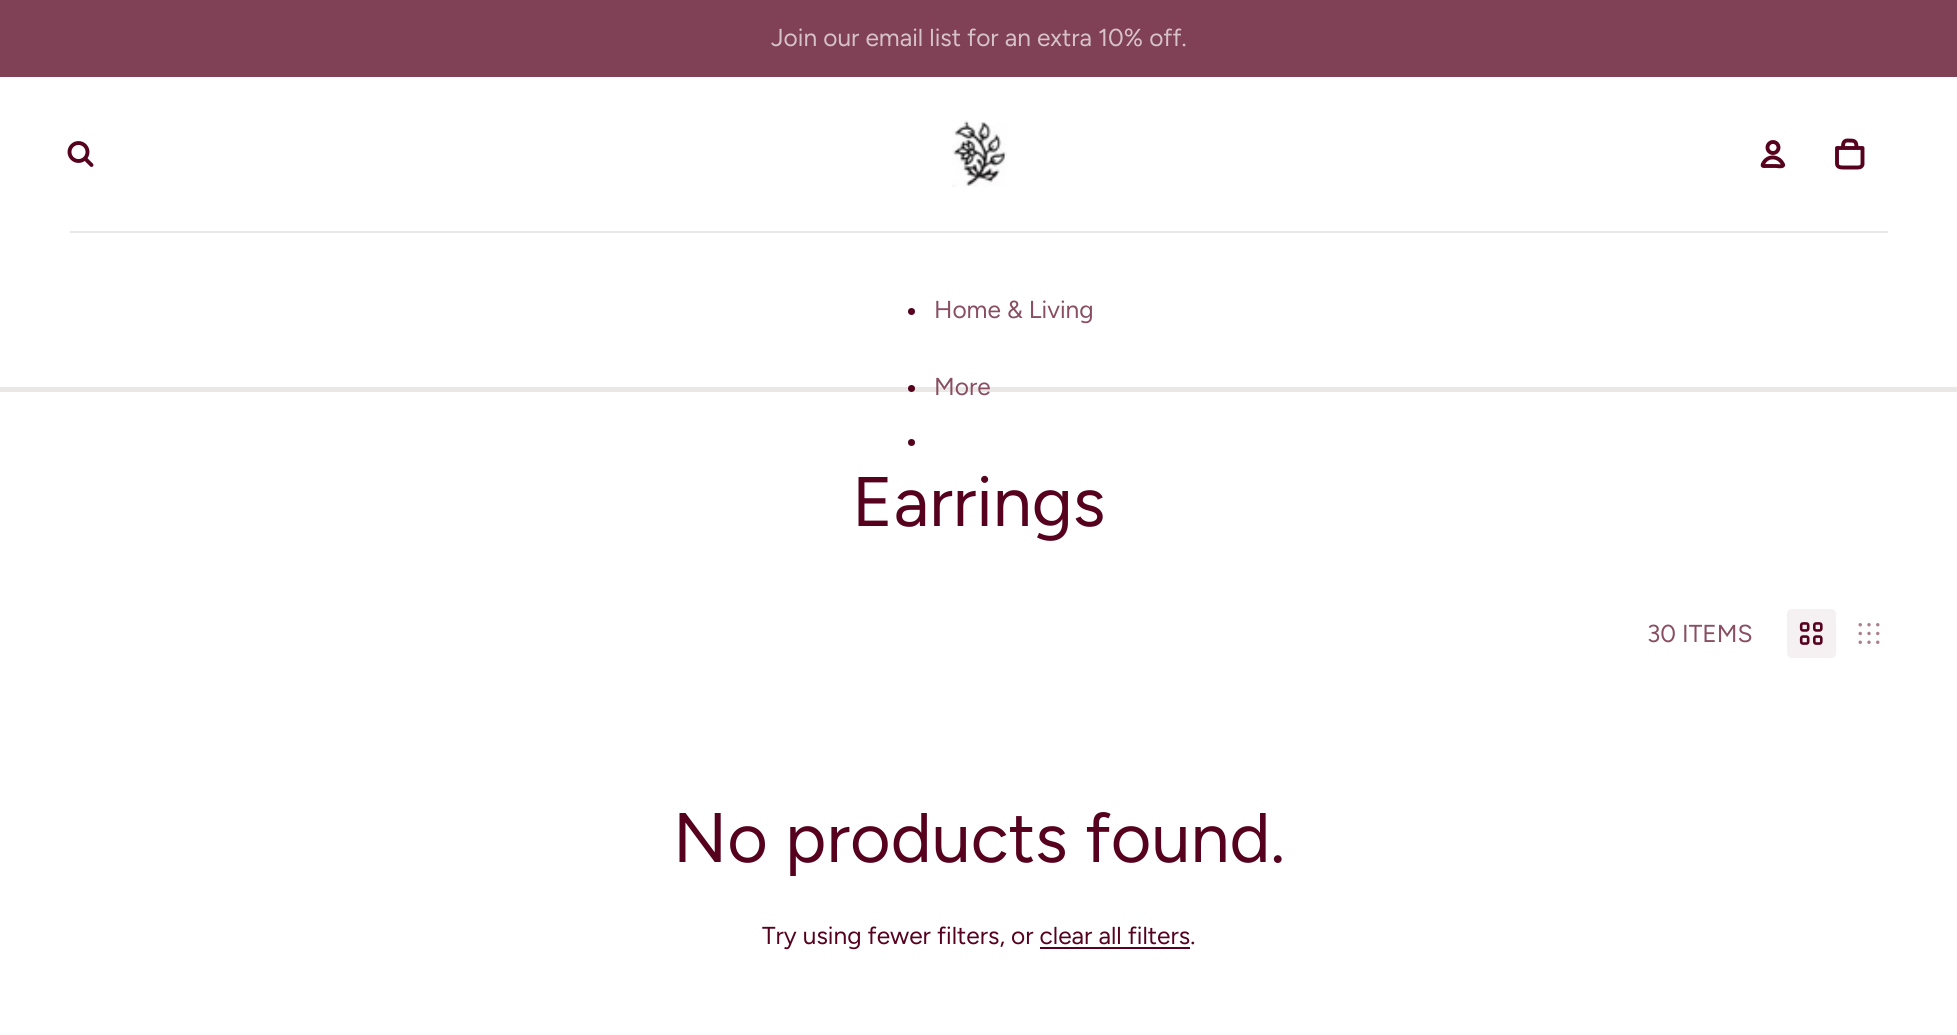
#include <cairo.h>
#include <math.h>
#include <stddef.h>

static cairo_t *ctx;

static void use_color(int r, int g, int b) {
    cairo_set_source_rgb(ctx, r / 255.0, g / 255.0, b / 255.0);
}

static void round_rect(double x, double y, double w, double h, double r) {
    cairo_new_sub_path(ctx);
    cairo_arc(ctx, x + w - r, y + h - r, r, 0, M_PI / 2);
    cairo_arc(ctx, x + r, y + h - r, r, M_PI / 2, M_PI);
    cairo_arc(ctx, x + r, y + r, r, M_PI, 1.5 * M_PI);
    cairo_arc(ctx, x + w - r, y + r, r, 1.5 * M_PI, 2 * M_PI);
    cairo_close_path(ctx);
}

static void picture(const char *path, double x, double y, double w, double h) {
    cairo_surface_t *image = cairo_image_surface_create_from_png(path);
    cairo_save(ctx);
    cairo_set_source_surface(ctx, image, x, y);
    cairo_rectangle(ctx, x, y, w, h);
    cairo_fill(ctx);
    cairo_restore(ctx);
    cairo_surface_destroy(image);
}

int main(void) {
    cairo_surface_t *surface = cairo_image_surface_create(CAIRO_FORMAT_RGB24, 1957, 1035);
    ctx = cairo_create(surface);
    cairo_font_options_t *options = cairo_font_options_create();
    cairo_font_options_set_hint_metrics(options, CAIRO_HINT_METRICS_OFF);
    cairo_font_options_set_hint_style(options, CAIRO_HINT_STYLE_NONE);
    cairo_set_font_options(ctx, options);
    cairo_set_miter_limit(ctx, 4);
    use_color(255, 255, 255);
    cairo_paint(ctx);
    use_color(128, 65, 87);
    cairo_rectangle(ctx, 0, 0, 1957, 77);
    cairo_fill(ctx);
    cairo_select_font_face(ctx, "Figtree", CAIRO_FONT_SLANT_NORMAL, CAIRO_FONT_WEIGHT_NORMAL);
    cairo_set_font_size(ctx, 24.5);
    use_color(214, 194, 201);
    cairo_move_to(ctx, 771, 46);
    cairo_show_text(ctx, "Join our email list for an extra 10% off.");
    use_color(234, 232, 230);
    cairo_rectangle(ctx, 70, 231, 1818, 2);
    cairo_fill(ctx);
    cairo_arc(ctx, 78.5, 152, 9, 0, 2 * M_PI);
    use_color(86, 2, 31);
    cairo_set_line_width(ctx, 3.9);
    cairo_stroke(ctx);
    cairo_new_path(ctx);
    cairo_move_to(ctx, 85.5, 159);
    cairo_line_to(ctx, 91.5, 165);
    cairo_set_line_cap(ctx, CAIRO_LINE_CAP_ROUND);
    cairo_set_line_join(ctx, CAIRO_LINE_JOIN_ROUND);
    cairo_stroke(ctx);
    picture("img1.png", 952, 120, 55, 67);
    cairo_arc(ctx, 1773, 147.5, 5.5, 0, 2 * M_PI);
    cairo_set_line_cap(ctx, CAIRO_LINE_CAP_BUTT);
    cairo_set_line_join(ctx, CAIRO_LINE_JOIN_MITER);
    cairo_stroke(ctx);
    cairo_new_path(ctx);
    cairo_move_to(ctx, 1763.5, 163);
    cairo_curve_to(ctx, 1761.5, 166.5, 1763, 166, 1766.5, 166);
    cairo_line_to(ctx, 1776, 166);
    cairo_curve_to(ctx, 1777, 166, 1782, 167, 1783, 165.5);
    cairo_curve_to(ctx, 1783.5, 165, 1783, 164, 1782.5, 163.5);
    cairo_curve_to(ctx, 1778.5, 156, 1768, 155, 1763.5, 163);
    cairo_set_line_cap(ctx, CAIRO_LINE_CAP_ROUND);
    cairo_set_line_join(ctx, CAIRO_LINE_JOIN_ROUND);
    cairo_stroke(ctx);
    cairo_new_path(ctx);
    cairo_move_to(ctx, 1837, 148);
    cairo_line_to(ctx, 1862.5, 148);
    cairo_line_to(ctx, 1862.5, 164.5);
    cairo_curve_to(ctx, 1861.5, 168, 1858, 167.5, 1855.5, 167.5);
    cairo_line_to(ctx, 1844, 167.5);
    cairo_curve_to(ctx, 1841, 167.5, 1837, 167.5, 1837, 163.5);
    cairo_close_path(ctx);
    cairo_move_to(ctx, 1847.5, 140.5);
    cairo_curve_to(ctx, 1854.5, 140.5, 1856.5, 140.5, 1856.5, 148);
    cairo_line_to(ctx, 1843, 148);
    cairo_curve_to(ctx, 1843, 144.5, 1843, 140.5, 1847.5, 140.5);
    cairo_stroke(ctx);
    use_color(234, 232, 230);
    cairo_rectangle(ctx, 0, 387, 1957, 5);
    cairo_fill(ctx);
    use_color(86, 2, 31);
    cairo_arc(ctx, 911.5, 311.5, 3.5, 0, 2 * M_PI);
    cairo_fill(ctx);
    use_color(137, 78, 98);
    cairo_move_to(ctx, 934, 318);
    cairo_show_text(ctx, "Home & Living");
    use_color(86, 2, 31);
    cairo_new_path(ctx);
    cairo_arc(ctx, 911.5, 388.5, 3.5, 0, 2 * M_PI);
    cairo_fill(ctx);
    use_color(137, 78, 98);
    cairo_move_to(ctx, 934, 395);
    cairo_show_text(ctx, "More");
    use_color(86, 2, 31);
    cairo_new_path(ctx);
    cairo_arc(ctx, 911.5, 442.5, 3.5, 0, 2 * M_PI);
    cairo_fill(ctx);
    cairo_set_font_size(ctx, 70);
    cairo_move_to(ctx, 852, 526);
    cairo_show_text(ctx, "Earrings");
    cairo_set_font_size(ctx, 24.5);
    use_color(137, 78, 98);
    cairo_move_to(ctx, 1647, 642);
    cairo_show_text(ctx, "30 ITEMS");
    use_color(245, 240, 242);
    round_rect(1787, 609, 49, 49, 5);
    cairo_fill(ctx);
    picture("img2.png", 1799, 622, 24, 23);
    picture("img3.png", 1858, 623, 22, 21);
    cairo_set_font_size(ctx, 70);
    use_color(86, 2, 31);
    cairo_move_to(ctx, 673, 862);
    cairo_show_text(ctx, "No products found.");
    cairo_set_font_size(ctx, 24.5);
    cairo_move_to(ctx, 762, 944);
    cairo_show_text(ctx, "Try using fewer filters, or clear all filters.");
    cairo_rectangle(ctx, 1040, 947, 150, 2);
    cairo_fill(ctx);
    cairo_surface_write_to_png(surface, "result.png");
    cairo_font_options_destroy(options);
    cairo_destroy(ctx);
    cairo_surface_destroy(surface);
    return 0;
}
